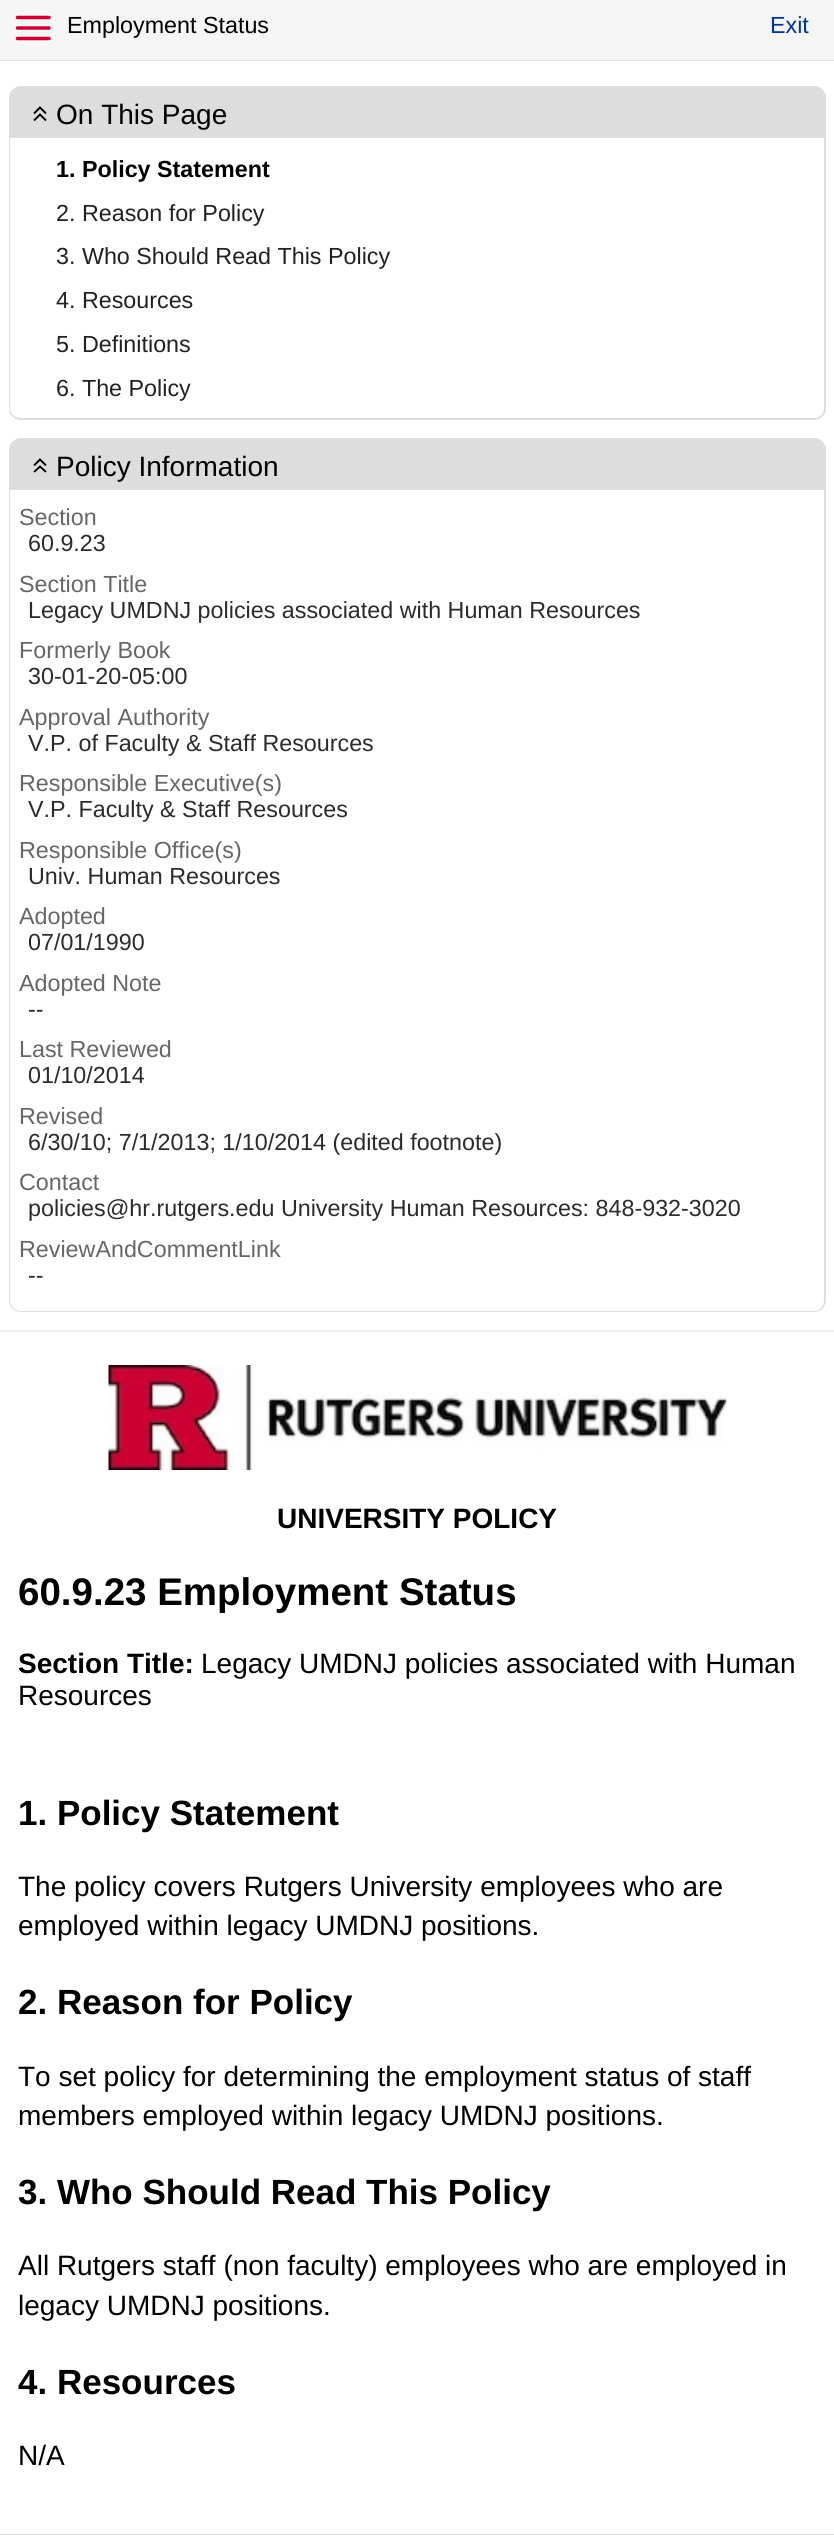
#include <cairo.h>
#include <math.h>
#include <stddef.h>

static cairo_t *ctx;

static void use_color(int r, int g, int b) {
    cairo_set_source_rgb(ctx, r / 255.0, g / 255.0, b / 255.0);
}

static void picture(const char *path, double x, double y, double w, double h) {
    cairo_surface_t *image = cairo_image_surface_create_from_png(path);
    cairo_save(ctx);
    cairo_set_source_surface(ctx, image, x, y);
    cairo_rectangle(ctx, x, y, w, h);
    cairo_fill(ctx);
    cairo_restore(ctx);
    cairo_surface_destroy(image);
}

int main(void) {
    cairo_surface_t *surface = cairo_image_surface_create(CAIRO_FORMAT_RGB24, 834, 2535);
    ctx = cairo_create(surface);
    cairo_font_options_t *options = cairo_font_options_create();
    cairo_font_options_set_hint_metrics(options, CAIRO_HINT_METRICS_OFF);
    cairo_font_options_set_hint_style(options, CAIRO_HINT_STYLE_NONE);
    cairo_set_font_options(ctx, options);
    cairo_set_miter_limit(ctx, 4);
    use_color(245, 245, 245);
    cairo_paint(ctx);
    use_color(221, 221, 221);
    cairo_rectangle(ctx, 0, 60, 834, 1);
    cairo_fill(ctx);
    cairo_new_path(ctx);
    cairo_move_to(ctx, 17.5, 28);
    cairo_line_to(ctx, 49, 28);
    cairo_move_to(ctx, 17.5, 17.5);
    cairo_line_to(ctx, 49, 17.5);
    cairo_move_to(ctx, 17.5, 38.5);
    cairo_line_to(ctx, 49, 38.5);
    use_color(204, 0, 51);
    cairo_set_line_width(ctx, 3.5);
    cairo_set_line_cap(ctx, CAIRO_LINE_CAP_ROUND);
    cairo_set_line_join(ctx, CAIRO_LINE_JOIN_ROUND);
    cairo_stroke(ctx);
    cairo_select_font_face(ctx, "Liberation Sans", CAIRO_FONT_SLANT_NORMAL, CAIRO_FONT_WEIGHT_NORMAL);
    cairo_set_font_size(ctx, 23.3);
    use_color(0, 0, 0);
    cairo_move_to(ctx, 67, 33);
    cairo_show_text(ctx, "Employment Status");
    use_color(0, 51, 153);
    cairo_move_to(ctx, 770, 33);
    cairo_show_text(ctx, "Exit");
    use_color(255, 255, 255);
    cairo_rectangle(ctx, 0, 61, 834, 2473);
    cairo_fill(ctx);
    use_color(221, 221, 221);
    cairo_rectangle(ctx, 0, 2534, 834, 1);
    cairo_fill(ctx);
    use_color(238, 238, 238);
    cairo_rectangle(ctx, 0, 1330, 834, 2);
    cairo_fill(ctx);
    use_color(221, 221, 221);
    cairo_new_path(ctx);
    cairo_move_to(ctx, 21, 87);
    cairo_line_to(ctx, 814, 87);
    cairo_curve_to(ctx, 820, 87, 825, 92, 825, 98);
    cairo_line_to(ctx, 825, 137);
    cairo_line_to(ctx, 10, 137);
    cairo_line_to(ctx, 10, 98);
    cairo_curve_to(ctx, 10, 92, 15, 87, 21, 87);
    cairo_close_path(ctx);
    cairo_fill_preserve(ctx);
    cairo_set_line_width(ctx, 2);
    cairo_set_line_cap(ctx, CAIRO_LINE_CAP_BUTT);
    cairo_set_line_join(ctx, CAIRO_LINE_JOIN_MITER);
    cairo_stroke(ctx);
    cairo_new_path(ctx);
    cairo_move_to(ctx, 34, 113.5);
    cairo_line_to(ctx, 40, 107.5);
    cairo_line_to(ctx, 46, 113.5);
    cairo_move_to(ctx, 34, 120.5);
    cairo_line_to(ctx, 40, 114.5);
    cairo_line_to(ctx, 46, 120.5);
    use_color(0, 0, 0);
    cairo_set_line_width(ctx, 1.9);
    cairo_stroke(ctx);
    cairo_set_font_size(ctx, 28);
    cairo_move_to(ctx, 56, 124);
    cairo_show_text(ctx, "On This Page");
    use_color(221, 221, 221);
    cairo_set_fill_rule(ctx, CAIRO_FILL_RULE_EVEN_ODD);
    cairo_new_path(ctx);
    cairo_move_to(ctx, 9, 138);
    cairo_line_to(ctx, 826, 138);
    cairo_line_to(ctx, 826, 408);
    cairo_curve_to(ctx, 826, 415, 821, 420, 814, 420);
    cairo_line_to(ctx, 21, 420);
    cairo_curve_to(ctx, 14, 420, 9, 415, 9, 408);
    cairo_close_path(ctx);
    cairo_move_to(ctx, 10, 138);
    cairo_line_to(ctx, 824, 138);
    cairo_line_to(ctx, 824, 408);
    cairo_curve_to(ctx, 824, 414, 820, 418, 814, 418);
    cairo_line_to(ctx, 21, 418);
    cairo_curve_to(ctx, 15, 418, 10, 414, 10, 408);
    cairo_close_path(ctx);
    cairo_fill(ctx);
    cairo_select_font_face(ctx, "Liberation Sans", CAIRO_FONT_SLANT_NORMAL, CAIRO_FONT_WEIGHT_BOLD);
    cairo_set_font_size(ctx, 23.3);
    use_color(0, 0, 0);
    cairo_move_to(ctx, 56, 177);
    cairo_show_text(ctx, "1. Policy Statement");
    cairo_select_font_face(ctx, "Liberation Sans", CAIRO_FONT_SLANT_NORMAL, CAIRO_FONT_WEIGHT_NORMAL);
    use_color(33, 33, 33);
    cairo_move_to(ctx, 56, 221);
    cairo_show_text(ctx, "2. Reason for Policy");
    cairo_move_to(ctx, 56, 264);
    cairo_show_text(ctx, "3. Who Should Read This Policy");
    cairo_move_to(ctx, 56, 308);
    cairo_show_text(ctx, "4. Resources");
    cairo_move_to(ctx, 56, 352);
    cairo_show_text(ctx, "5. Definitions");
    cairo_move_to(ctx, 56, 396);
    cairo_show_text(ctx, "6. The Policy");
    use_color(221, 221, 221);
    cairo_new_path(ctx);
    cairo_move_to(ctx, 21, 439);
    cairo_line_to(ctx, 814, 439);
    cairo_curve_to(ctx, 820, 439, 825, 444, 825, 450);
    cairo_line_to(ctx, 825, 489);
    cairo_line_to(ctx, 10, 489);
    cairo_line_to(ctx, 10, 450);
    cairo_curve_to(ctx, 10, 444, 15, 439, 21, 439);
    cairo_close_path(ctx);
    cairo_fill_preserve(ctx);
    cairo_set_line_width(ctx, 2);
    cairo_stroke(ctx);
    cairo_new_path(ctx);
    cairo_move_to(ctx, 34, 465.5);
    cairo_line_to(ctx, 40, 459.5);
    cairo_line_to(ctx, 46, 465.5);
    cairo_move_to(ctx, 34, 472);
    cairo_line_to(ctx, 40, 466.5);
    cairo_line_to(ctx, 46, 472);
    use_color(0, 0, 0);
    cairo_set_line_width(ctx, 1.9);
    cairo_stroke(ctx);
    cairo_set_font_size(ctx, 28);
    cairo_move_to(ctx, 56, 476);
    cairo_show_text(ctx, "Policy Information");
    use_color(221, 221, 221);
    cairo_new_path(ctx);
    cairo_move_to(ctx, 9, 490);
    cairo_line_to(ctx, 826, 490);
    cairo_line_to(ctx, 826, 1300);
    cairo_curve_to(ctx, 826, 1307, 821, 1312, 814, 1312);
    cairo_line_to(ctx, 21, 1312);
    cairo_curve_to(ctx, 14, 1312, 9, 1307, 9, 1300);
    cairo_close_path(ctx);
    cairo_move_to(ctx, 10, 490);
    cairo_line_to(ctx, 824, 490);
    cairo_line_to(ctx, 824, 1300);
    cairo_curve_to(ctx, 824, 1306, 820, 1311, 814, 1311);
    cairo_line_to(ctx, 21, 1311);
    cairo_curve_to(ctx, 15, 1311, 10, 1306, 10, 1300);
    cairo_close_path(ctx);
    cairo_fill(ctx);
    cairo_set_font_size(ctx, 23.3);
    use_color(102, 102, 102);
    cairo_move_to(ctx, 19, 525);
    cairo_show_text(ctx, "Section");
    use_color(43, 43, 43);
    cairo_move_to(ctx, 28, 551);
    cairo_show_text(ctx, "60.9.23");
    use_color(102, 102, 102);
    cairo_move_to(ctx, 19, 592);
    cairo_show_text(ctx, "Section Title");
    use_color(43, 43, 43);
    cairo_move_to(ctx, 28, 618);
    cairo_show_text(ctx, "Legacy UMDNJ policies associated with Human Resources");
    use_color(102, 102, 102);
    cairo_move_to(ctx, 19, 658);
    cairo_show_text(ctx, "Formerly Book");
    use_color(43, 43, 43);
    cairo_move_to(ctx, 28, 684);
    cairo_show_text(ctx, "30-01-20-05:00");
    use_color(102, 102, 102);
    cairo_move_to(ctx, 19, 725);
    cairo_show_text(ctx, "Approval Authority");
    use_color(43, 43, 43);
    cairo_move_to(ctx, 28, 751);
    cairo_show_text(ctx, "V.P. of Faculty & Staff Resources");
    use_color(102, 102, 102);
    cairo_move_to(ctx, 19, 791);
    cairo_show_text(ctx, "Responsible Executive(s)");
    use_color(43, 43, 43);
    cairo_move_to(ctx, 28, 817);
    cairo_show_text(ctx, "V.P. Faculty & Staff Resources");
    use_color(102, 102, 102);
    cairo_move_to(ctx, 19, 858);
    cairo_show_text(ctx, "Responsible Office(s)");
    use_color(43, 43, 43);
    cairo_move_to(ctx, 28, 884);
    cairo_show_text(ctx, "Univ. Human Resources");
    use_color(102, 102, 102);
    cairo_move_to(ctx, 19, 924);
    cairo_show_text(ctx, "Adopted");
    use_color(43, 43, 43);
    cairo_move_to(ctx, 28, 950);
    cairo_show_text(ctx, "07/01/1990");
    use_color(102, 102, 102);
    cairo_move_to(ctx, 19, 991);
    cairo_show_text(ctx, "Adopted Note");
    use_color(43, 43, 43);
    cairo_move_to(ctx, 28, 1017);
    cairo_show_text(ctx, "--");
    use_color(102, 102, 102);
    cairo_move_to(ctx, 19, 1057);
    cairo_show_text(ctx, "Last Reviewed");
    use_color(43, 43, 43);
    cairo_move_to(ctx, 28, 1083);
    cairo_show_text(ctx, "01/10/2014");
    use_color(102, 102, 102);
    cairo_move_to(ctx, 19, 1124);
    cairo_show_text(ctx, "Revised");
    use_color(43, 43, 43);
    cairo_move_to(ctx, 28, 1150);
    cairo_show_text(ctx, "6/30/10; 7/1/2013; 1/10/2014 (edited footnote)");
    use_color(102, 102, 102);
    cairo_move_to(ctx, 19, 1190);
    cairo_show_text(ctx, "Contact");
    use_color(43, 43, 43);
    cairo_move_to(ctx, 28, 1216);
    cairo_show_text(ctx, "policies@hr.rutgers.edu University Human Resources: 848-932-3020");
    use_color(102, 102, 102);
    cairo_move_to(ctx, 19, 1257);
    cairo_show_text(ctx, "ReviewAndCommentLink");
    use_color(43, 43, 43);
    cairo_move_to(ctx, 28, 1283);
    cairo_show_text(ctx, "--");
    picture("img1.png", 108, 1365, 619, 105);
    cairo_select_font_face(ctx, "Liberation Sans", CAIRO_FONT_SLANT_NORMAL, CAIRO_FONT_WEIGHT_BOLD);
    cairo_set_font_size(ctx, 28);
    use_color(0, 0, 0);
    cairo_move_to(ctx, 277, 1528);
    cairo_show_text(ctx, "UNIVERSITY POLICY");
    cairo_set_font_size(ctx, 38.5);
    cairo_move_to(ctx, 18, 1605);
    cairo_show_text(ctx, "60.9.23 Employment Status");
    cairo_set_font_size(ctx, 28);
    cairo_move_to(ctx, 18, 1673);
    cairo_show_text(ctx, "Section Title:");
    cairo_select_font_face(ctx, "Liberation Sans", CAIRO_FONT_SLANT_NORMAL, CAIRO_FONT_WEIGHT_NORMAL);
    cairo_move_to(ctx, 201, 1673);
    cairo_show_text(ctx, "Legacy UMDNJ policies associated with Human");
    cairo_move_to(ctx, 18, 1705);
    cairo_show_text(ctx, "Resources");
    cairo_select_font_face(ctx, "Liberation Sans", CAIRO_FONT_SLANT_NORMAL, CAIRO_FONT_WEIGHT_BOLD);
    cairo_set_font_size(ctx, 35);
    cairo_move_to(ctx, 18, 1825);
    cairo_show_text(ctx, "1. Policy Statement");
    cairo_select_font_face(ctx, "Liberation Sans", CAIRO_FONT_SLANT_NORMAL, CAIRO_FONT_WEIGHT_NORMAL);
    cairo_set_font_size(ctx, 28);
    cairo_move_to(ctx, 18, 1896);
    cairo_show_text(ctx, "The policy covers Rutgers University employees who are");
    cairo_move_to(ctx, 18, 1935);
    cairo_show_text(ctx, "employed within legacy UMDNJ positions.");
    cairo_select_font_face(ctx, "Liberation Sans", CAIRO_FONT_SLANT_NORMAL, CAIRO_FONT_WEIGHT_BOLD);
    cairo_set_font_size(ctx, 35);
    cairo_move_to(ctx, 18, 2014);
    cairo_show_text(ctx, "2. Reason for Policy");
    cairo_select_font_face(ctx, "Liberation Sans", CAIRO_FONT_SLANT_NORMAL, CAIRO_FONT_WEIGHT_NORMAL);
    cairo_set_font_size(ctx, 28);
    cairo_move_to(ctx, 18, 2086);
    cairo_show_text(ctx, "To set policy for determining the employment status of staff");
    cairo_move_to(ctx, 18, 2125);
    cairo_show_text(ctx, "members employed within legacy UMDNJ positions.");
    cairo_select_font_face(ctx, "Liberation Sans", CAIRO_FONT_SLANT_NORMAL, CAIRO_FONT_WEIGHT_BOLD);
    cairo_set_font_size(ctx, 35);
    cairo_move_to(ctx, 18, 2204);
    cairo_show_text(ctx, "3. Who Should Read This Policy");
    cairo_select_font_face(ctx, "Liberation Sans", CAIRO_FONT_SLANT_NORMAL, CAIRO_FONT_WEIGHT_NORMAL);
    cairo_set_font_size(ctx, 28);
    cairo_move_to(ctx, 18, 2275);
    cairo_show_text(ctx, "All Rutgers staff (non faculty) employees who are employed in");
    cairo_move_to(ctx, 18, 2315);
    cairo_show_text(ctx, "legacy UMDNJ positions.");
    cairo_select_font_face(ctx, "Liberation Sans", CAIRO_FONT_SLANT_NORMAL, CAIRO_FONT_WEIGHT_BOLD);
    cairo_set_font_size(ctx, 35);
    cairo_move_to(ctx, 18, 2394);
    cairo_show_text(ctx, "4. Resources");
    cairo_select_font_face(ctx, "Liberation Sans", CAIRO_FONT_SLANT_NORMAL, CAIRO_FONT_WEIGHT_NORMAL);
    cairo_set_font_size(ctx, 28);
    cairo_move_to(ctx, 18, 2465);
    cairo_show_text(ctx, "N/A");
    cairo_surface_write_to_png(surface, "result.png");
    cairo_font_options_destroy(options);
    cairo_destroy(ctx);
    cairo_surface_destroy(surface);
    return 0;
}
